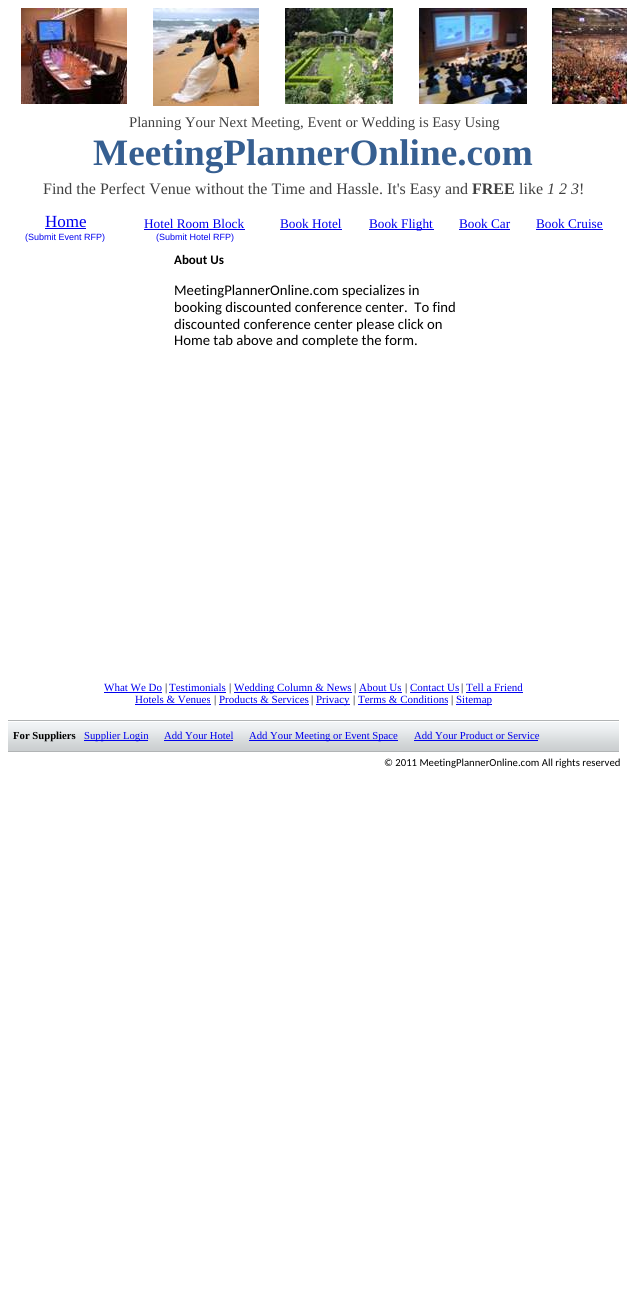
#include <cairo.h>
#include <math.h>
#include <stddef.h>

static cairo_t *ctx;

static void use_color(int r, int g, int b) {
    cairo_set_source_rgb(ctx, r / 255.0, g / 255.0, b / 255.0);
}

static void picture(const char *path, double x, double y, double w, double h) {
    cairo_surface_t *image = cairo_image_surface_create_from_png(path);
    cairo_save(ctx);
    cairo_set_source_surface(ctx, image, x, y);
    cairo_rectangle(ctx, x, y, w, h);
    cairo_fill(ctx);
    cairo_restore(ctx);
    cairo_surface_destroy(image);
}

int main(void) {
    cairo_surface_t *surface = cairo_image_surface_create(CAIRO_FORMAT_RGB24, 627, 1297);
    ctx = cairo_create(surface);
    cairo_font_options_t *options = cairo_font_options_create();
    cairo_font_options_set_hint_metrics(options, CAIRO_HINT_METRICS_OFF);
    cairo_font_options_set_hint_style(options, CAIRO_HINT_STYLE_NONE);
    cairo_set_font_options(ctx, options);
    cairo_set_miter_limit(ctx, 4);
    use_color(255, 255, 255);
    cairo_paint(ctx);
    picture("img1.png", 21, 8, 106, 96);
    picture("img2.png", 153, 8, 106, 98);
    picture("img3.png", 285, 8, 108, 96);
    picture("img4.png", 419, 8, 108, 96);
    picture("img5.png", 552, 8, 75, 96);
    cairo_select_font_face(ctx, "Liberation Serif", CAIRO_FONT_SLANT_NORMAL, CAIRO_FONT_WEIGHT_NORMAL);
    cairo_set_font_size(ctx, 14.7);
    use_color(64, 64, 64);
    cairo_move_to(ctx, 129, 127);
    cairo_show_text(ctx, "Planning Your Next Meeting, Event or Wedding is Easy Using");
    cairo_select_font_face(ctx, "Liberation Serif", CAIRO_FONT_SLANT_NORMAL, CAIRO_FONT_WEIGHT_BOLD);
    cairo_set_font_size(ctx, 37.25);
    use_color(54, 95, 145);
    cairo_move_to(ctx, 93, 165);
    cairo_show_text(ctx, "MeetingPlannerOnline.com");
    cairo_select_font_face(ctx, "Liberation Serif", CAIRO_FONT_SLANT_NORMAL, CAIRO_FONT_WEIGHT_NORMAL);
    cairo_set_font_size(ctx, 16);
    use_color(64, 64, 64);
    cairo_move_to(ctx, 43, 194);
    cairo_show_text(ctx, "Find the Perfect Venue without the Time and Hassle. It's Easy and");
    cairo_select_font_face(ctx, "Liberation Serif", CAIRO_FONT_SLANT_NORMAL, CAIRO_FONT_WEIGHT_BOLD);
    cairo_move_to(ctx, 472, 194);
    cairo_show_text(ctx, "FREE");
    cairo_select_font_face(ctx, "Liberation Serif", CAIRO_FONT_SLANT_NORMAL, CAIRO_FONT_WEIGHT_NORMAL);
    cairo_move_to(ctx, 519, 194);
    cairo_show_text(ctx, "like");
    cairo_select_font_face(ctx, "Liberation Serif", CAIRO_FONT_SLANT_ITALIC, CAIRO_FONT_WEIGHT_NORMAL);
    cairo_move_to(ctx, 547, 194);
    cairo_show_text(ctx, "1 2 3");
    cairo_select_font_face(ctx, "Liberation Serif", CAIRO_FONT_SLANT_NORMAL, CAIRO_FONT_WEIGHT_NORMAL);
    cairo_move_to(ctx, 579, 194);
    cairo_show_text(ctx, "!");
    cairo_set_font_size(ctx, 17);
    use_color(0, 0, 238);
    cairo_move_to(ctx, 45, 227);
    cairo_show_text(ctx, "Home");
    cairo_rectangle(ctx, 45, 228, 41, 1);
    cairo_fill(ctx);
    cairo_set_font_size(ctx, 13.25);
    cairo_move_to(ctx, 144, 228);
    cairo_show_text(ctx, "Hotel Room Block");
    cairo_rectangle(ctx, 144, 229, 101, 1);
    cairo_fill(ctx);
    cairo_move_to(ctx, 280, 228);
    cairo_show_text(ctx, "Book Hotel");
    cairo_rectangle(ctx, 280, 229, 62, 1);
    cairo_fill(ctx);
    cairo_rectangle(ctx, 369, 229, 65, 1);
    cairo_fill(ctx);
    cairo_move_to(ctx, 369, 228);
    cairo_show_text(ctx, "Book Flight");
    cairo_move_to(ctx, 459, 228);
    cairo_show_text(ctx, "Book Car");
    cairo_rectangle(ctx, 459, 229, 51, 1);
    cairo_fill(ctx);
    cairo_move_to(ctx, 536, 228);
    cairo_show_text(ctx, "Book Cruise");
    cairo_rectangle(ctx, 536, 229, 67, 1);
    cairo_fill(ctx);
    cairo_select_font_face(ctx, "Liberation Sans", CAIRO_FONT_SLANT_NORMAL, CAIRO_FONT_WEIGHT_NORMAL);
    cairo_set_font_size(ctx, 9);
    cairo_move_to(ctx, 25, 240);
    cairo_show_text(ctx, "(Submit Event RFP)");
    cairo_move_to(ctx, 156, 240);
    cairo_show_text(ctx, "(Submit Hotel RFP)");
    cairo_select_font_face(ctx, "Carlito", CAIRO_FONT_SLANT_NORMAL, CAIRO_FONT_WEIGHT_BOLD);
    cairo_set_font_size(ctx, 13);
    use_color(0, 0, 0);
    cairo_move_to(ctx, 174, 264);
    cairo_show_text(ctx, "About Us");
    cairo_select_font_face(ctx, "Carlito", CAIRO_FONT_SLANT_NORMAL, CAIRO_FONT_WEIGHT_NORMAL);
    cairo_set_font_size(ctx, 14.7);
    cairo_move_to(ctx, 174, 295);
    cairo_show_text(ctx, "MeetingPlannerOnline.com specializes in");
    cairo_move_to(ctx, 174, 312);
    cairo_show_text(ctx, "booking discounted conference center.  To find");
    cairo_move_to(ctx, 174, 329);
    cairo_show_text(ctx, "discounted conference center please click on");
    cairo_move_to(ctx, 174, 345);
    cairo_show_text(ctx, "Home tab above and complete the form.");
    cairo_select_font_face(ctx, "Liberation Serif", CAIRO_FONT_SLANT_NORMAL, CAIRO_FONT_WEIGHT_NORMAL);
    cairo_set_font_size(ctx, 11);
    use_color(0, 0, 238);
    cairo_move_to(ctx, 104, 691);
    cairo_show_text(ctx, "What We Do");
    cairo_rectangle(ctx, 104, 692, 58, 1);
    cairo_fill(ctx);
    use_color(0, 0, 0);
    cairo_move_to(ctx, 165, 691);
    cairo_show_text(ctx, "|");
    use_color(0, 0, 238);
    cairo_move_to(ctx, 169, 691);
    cairo_show_text(ctx, "Testimonials");
    cairo_rectangle(ctx, 169, 692, 57, 1);
    cairo_fill(ctx);
    use_color(0, 0, 0);
    cairo_move_to(ctx, 229, 691);
    cairo_show_text(ctx, "|");
    use_color(0, 0, 238);
    cairo_rectangle(ctx, 234, 692, 118, 1);
    cairo_fill(ctx);
    cairo_move_to(ctx, 234, 691);
    cairo_show_text(ctx, "Wedding Column & News");
    use_color(0, 0, 0);
    cairo_move_to(ctx, 354, 691);
    cairo_show_text(ctx, "|");
    use_color(0, 0, 238);
    cairo_move_to(ctx, 359, 691);
    cairo_show_text(ctx, "About Us");
    cairo_rectangle(ctx, 359, 692, 43, 1);
    cairo_fill(ctx);
    use_color(0, 0, 0);
    cairo_move_to(ctx, 405, 691);
    cairo_show_text(ctx, "|");
    use_color(0, 0, 238);
    cairo_move_to(ctx, 410, 691);
    cairo_show_text(ctx, "Contact Us");
    cairo_rectangle(ctx, 410, 692, 49, 1);
    cairo_fill(ctx);
    use_color(0, 0, 0);
    cairo_move_to(ctx, 461, 691);
    cairo_show_text(ctx, "|");
    use_color(0, 0, 238);
    cairo_move_to(ctx, 466, 691);
    cairo_show_text(ctx, "Tell a Friend");
    cairo_rectangle(ctx, 466, 692, 57, 1);
    cairo_fill(ctx);
    cairo_move_to(ctx, 135, 703);
    cairo_show_text(ctx, "Hotels & Venues");
    cairo_rectangle(ctx, 135, 704, 76, 1);
    cairo_fill(ctx);
    use_color(0, 0, 0);
    cairo_move_to(ctx, 214, 703);
    cairo_show_text(ctx, "|");
    use_color(0, 0, 238);
    cairo_move_to(ctx, 219, 703);
    cairo_show_text(ctx, "Products & Services");
    cairo_rectangle(ctx, 219, 704, 90, 1);
    cairo_fill(ctx);
    use_color(0, 0, 0);
    cairo_move_to(ctx, 311, 703);
    cairo_show_text(ctx, "|");
    use_color(0, 0, 238);
    cairo_rectangle(ctx, 316, 704, 34, 1);
    cairo_fill(ctx);
    cairo_move_to(ctx, 316, 703);
    cairo_show_text(ctx, "Privacy");
    use_color(0, 0, 0);
    cairo_move_to(ctx, 353, 703);
    cairo_show_text(ctx, "|");
    use_color(0, 0, 238);
    cairo_move_to(ctx, 358, 703);
    cairo_show_text(ctx, "Terms & Conditions");
    cairo_rectangle(ctx, 358, 704, 90, 1);
    cairo_fill(ctx);
    use_color(0, 0, 0);
    cairo_move_to(ctx, 451, 703);
    cairo_show_text(ctx, "|");
    use_color(0, 0, 238);
    cairo_rectangle(ctx, 456, 704, 36, 1);
    cairo_fill(ctx);
    cairo_move_to(ctx, 456, 703);
    cairo_show_text(ctx, "Sitemap");
    picture("img6.png", 8, 720, 611, 32);
    cairo_select_font_face(ctx, "Liberation Serif", CAIRO_FONT_SLANT_NORMAL, CAIRO_FONT_WEIGHT_BOLD);
    cairo_set_font_size(ctx, 10.7);
    use_color(0, 0, 0);
    cairo_move_to(ctx, 13, 739);
    cairo_show_text(ctx, "For Suppliers");
    use_color(0, 0, 238);
    cairo_rectangle(ctx, 84, 740, 64, 1);
    cairo_fill(ctx);
    cairo_select_font_face(ctx, "Liberation Serif", CAIRO_FONT_SLANT_NORMAL, CAIRO_FONT_WEIGHT_NORMAL);
    cairo_move_to(ctx, 84, 739);
    cairo_show_text(ctx, "Supplier Login");
    cairo_move_to(ctx, 164, 739);
    cairo_show_text(ctx, "Add Your Hotel");
    cairo_rectangle(ctx, 164, 740, 69, 1);
    cairo_fill(ctx);
    cairo_rectangle(ctx, 249, 740, 149, 1);
    cairo_fill(ctx);
    cairo_move_to(ctx, 249, 739);
    cairo_show_text(ctx, "Add Your Meeting or Event Space");
    cairo_move_to(ctx, 414, 739);
    cairo_show_text(ctx, "Add Your Product or Service");
    cairo_rectangle(ctx, 414, 740, 124, 1);
    cairo_fill(ctx);
    cairo_select_font_face(ctx, "Carlito", CAIRO_FONT_SLANT_NORMAL, CAIRO_FONT_WEIGHT_NORMAL);
    use_color(0, 0, 0);
    cairo_move_to(ctx, 384, 766);
    cairo_show_text(ctx, "© 2011 MeetingPlannerOnline.com All rights reserved");
    cairo_surface_write_to_png(surface, "result.png");
    cairo_font_options_destroy(options);
    cairo_destroy(ctx);
    cairo_surface_destroy(surface);
    return 0;
}
